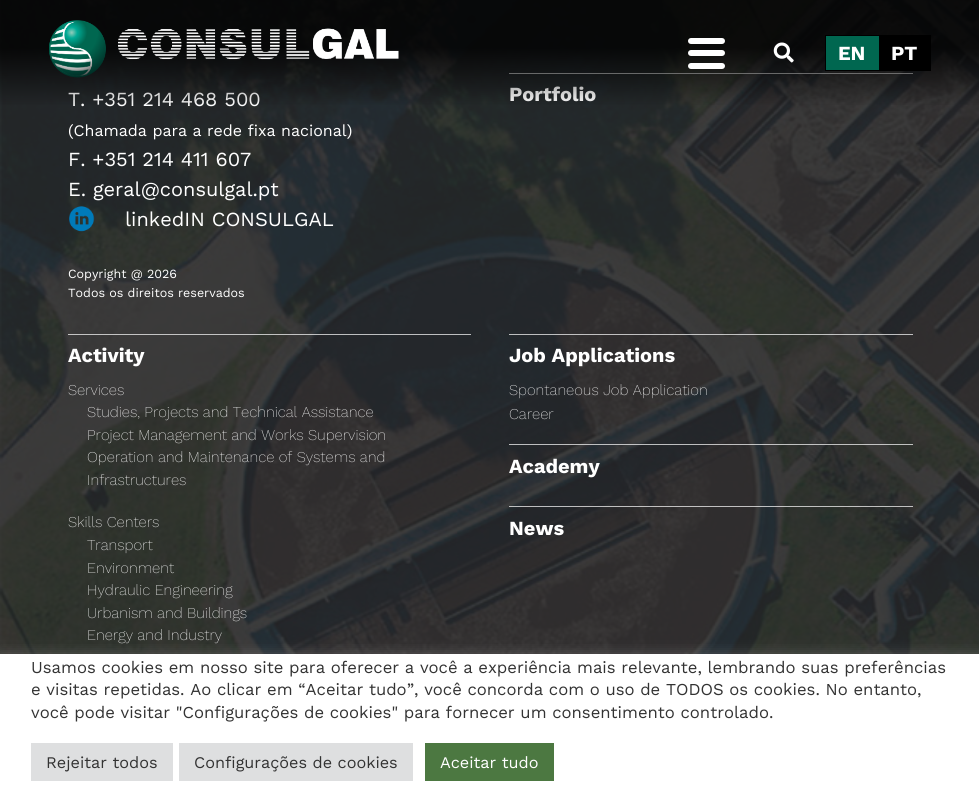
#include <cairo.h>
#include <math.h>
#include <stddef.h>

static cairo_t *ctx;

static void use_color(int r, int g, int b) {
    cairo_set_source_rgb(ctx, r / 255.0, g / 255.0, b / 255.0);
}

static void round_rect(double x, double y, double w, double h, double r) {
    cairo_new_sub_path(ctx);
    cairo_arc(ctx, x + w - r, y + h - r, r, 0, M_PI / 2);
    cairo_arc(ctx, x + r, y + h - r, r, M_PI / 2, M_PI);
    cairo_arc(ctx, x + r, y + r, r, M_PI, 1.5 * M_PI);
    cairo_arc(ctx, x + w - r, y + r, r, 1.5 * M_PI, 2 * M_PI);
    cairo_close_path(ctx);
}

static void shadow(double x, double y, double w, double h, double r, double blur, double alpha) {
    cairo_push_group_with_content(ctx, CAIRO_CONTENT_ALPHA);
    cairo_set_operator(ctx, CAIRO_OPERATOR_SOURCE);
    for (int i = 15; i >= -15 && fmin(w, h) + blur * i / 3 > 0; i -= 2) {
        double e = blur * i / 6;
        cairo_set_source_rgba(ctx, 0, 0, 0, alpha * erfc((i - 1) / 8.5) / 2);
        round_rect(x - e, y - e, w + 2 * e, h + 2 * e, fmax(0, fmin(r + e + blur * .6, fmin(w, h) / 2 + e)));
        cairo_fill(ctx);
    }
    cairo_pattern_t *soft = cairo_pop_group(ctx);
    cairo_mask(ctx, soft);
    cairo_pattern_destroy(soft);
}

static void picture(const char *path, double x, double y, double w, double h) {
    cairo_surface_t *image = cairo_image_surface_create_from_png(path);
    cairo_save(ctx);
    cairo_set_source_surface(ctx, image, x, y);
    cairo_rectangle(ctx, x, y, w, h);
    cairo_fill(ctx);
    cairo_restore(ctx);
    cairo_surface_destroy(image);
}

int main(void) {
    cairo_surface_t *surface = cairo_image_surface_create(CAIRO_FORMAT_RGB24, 979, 790);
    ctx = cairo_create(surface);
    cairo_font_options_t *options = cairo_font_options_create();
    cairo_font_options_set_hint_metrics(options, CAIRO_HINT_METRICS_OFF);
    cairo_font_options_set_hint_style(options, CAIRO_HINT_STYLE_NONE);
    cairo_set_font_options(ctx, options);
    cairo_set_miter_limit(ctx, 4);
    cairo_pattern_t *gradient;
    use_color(255, 255, 255);
    cairo_paint(ctx);
    picture("img3.png", 0, 0, 979, 654);
    cairo_select_font_face(ctx, "Work Sans", CAIRO_FONT_SLANT_NORMAL, CAIRO_FONT_WEIGHT_NORMAL);
    cairo_set_font_size(ctx, 20);
    use_color(255, 255, 255);
    cairo_move_to(ctx, 68, 106);
    cairo_show_text(ctx, "T. +351 214 468 500");
    cairo_set_source_rgba(ctx, 1, 1, 1, 0.7);
    cairo_rectangle(ctx, 509, 73, 404, 1);
    cairo_fill(ctx);
    cairo_select_font_face(ctx, "Work Sans", CAIRO_FONT_SLANT_NORMAL, CAIRO_FONT_WEIGHT_BOLD);
    use_color(255, 255, 255);
    cairo_move_to(ctx, 509, 101);
    cairo_show_text(ctx, "Portfolio");
    gradient = cairo_pattern_create_linear(490, 0, 490, 106);
    cairo_pattern_add_color_stop_rgba(gradient, 0.45, 0, 0, 0, 0.8);
    cairo_pattern_add_color_stop_rgba(gradient, 1, 0, 0, 0, 0.01);
    cairo_set_source(ctx, gradient);
    cairo_pattern_destroy(gradient);
    cairo_rectangle(ctx, 0, 0, 979, 105);
    cairo_fill(ctx);
    picture("img1.png", 49, 20, 350, 58);
    use_color(255, 255, 255);
    round_rect(688, 38, 37, 6, 3);
    cairo_fill(ctx);
    round_rect(688, 50, 37, 6, 3);
    cairo_fill(ctx);
    round_rect(688, 63, 37, 6, 3);
    cairo_fill(ctx);
    picture("img2.png", 773, 42, 21, 21);
    use_color(0, 0, 0);
    cairo_rectangle(ctx, 825, 35, 106, 36);
    cairo_fill(ctx);
    use_color(0, 103, 80);
    cairo_rectangle(ctx, 826, 36, 53, 34);
    cairo_fill(ctx);
    use_color(255, 255, 255);
    cairo_move_to(ctx, 838, 60);
    cairo_show_text(ctx, "EN");
    cairo_move_to(ctx, 891, 60);
    cairo_show_text(ctx, "PT");
    cairo_select_font_face(ctx, "Work Sans", CAIRO_FONT_SLANT_NORMAL, CAIRO_FONT_WEIGHT_NORMAL);
    cairo_set_font_size(ctx, 16);
    cairo_move_to(ctx, 68, 136);
    cairo_show_text(ctx, "(Chamada para a rede fixa nacional)");
    cairo_set_font_size(ctx, 20);
    cairo_move_to(ctx, 68, 166);
    cairo_show_text(ctx, "F. +351 214 411 607");
    cairo_move_to(ctx, 68, 196);
    cairo_show_text(ctx, "E. geral@consulgal.pt");
    picture("img4.png", 69, 206, 26, 26);
    cairo_move_to(ctx, 125, 226);
    cairo_show_text(ctx, "linkedIN CONSULGAL");
    cairo_set_font_size(ctx, 12.5);
    cairo_move_to(ctx, 68, 278);
    cairo_show_text(ctx, "Copyright @ 2026");
    cairo_move_to(ctx, 68, 297);
    cairo_show_text(ctx, "Todos os direitos reservados");
    cairo_set_source_rgba(ctx, 1, 1, 1, 0.7);
    cairo_rectangle(ctx, 68, 334, 403, 1);
    cairo_fill(ctx);
    cairo_select_font_face(ctx, "Work Sans", CAIRO_FONT_SLANT_NORMAL, CAIRO_FONT_WEIGHT_BOLD);
    cairo_set_font_size(ctx, 20);
    use_color(255, 255, 255);
    cairo_move_to(ctx, 68, 362);
    cairo_show_text(ctx, "Activity");
    cairo_select_font_face(ctx, "Work Sans ExtraLight", CAIRO_FONT_SLANT_NORMAL, CAIRO_FONT_WEIGHT_NORMAL);
    cairo_set_font_size(ctx, 15);
    cairo_move_to(ctx, 68, 395);
    cairo_show_text(ctx, "Services");
    cairo_move_to(ctx, 87, 417);
    cairo_show_text(ctx, "Studies, Projects and Technical Assistance");
    cairo_move_to(ctx, 87, 440);
    cairo_show_text(ctx, "Project Management and Works Supervision");
    cairo_move_to(ctx, 87, 462);
    cairo_show_text(ctx, "Operation and Maintenance of Systems and");
    cairo_move_to(ctx, 87, 485);
    cairo_show_text(ctx, "Infrastructures");
    cairo_move_to(ctx, 68, 527);
    cairo_show_text(ctx, "Skills Centers");
    cairo_move_to(ctx, 87, 550);
    cairo_show_text(ctx, "Transport");
    cairo_move_to(ctx, 87, 573);
    cairo_show_text(ctx, "Environment");
    cairo_move_to(ctx, 87, 595);
    cairo_show_text(ctx, "Hydraulic Engineering");
    cairo_move_to(ctx, 87, 618);
    cairo_show_text(ctx, "Urbanism and Buildings");
    cairo_move_to(ctx, 87, 640);
    cairo_show_text(ctx, "Energy and Industry");
    cairo_set_source_rgba(ctx, 1, 1, 1, 0.7);
    cairo_rectangle(ctx, 509, 334, 404, 1);
    cairo_fill(ctx);
    cairo_select_font_face(ctx, "Work Sans", CAIRO_FONT_SLANT_NORMAL, CAIRO_FONT_WEIGHT_BOLD);
    cairo_set_font_size(ctx, 20);
    use_color(255, 255, 255);
    cairo_move_to(ctx, 509, 362);
    cairo_show_text(ctx, "Job Applications");
    cairo_select_font_face(ctx, "Work Sans ExtraLight", CAIRO_FONT_SLANT_NORMAL, CAIRO_FONT_WEIGHT_NORMAL);
    cairo_set_font_size(ctx, 15);
    cairo_move_to(ctx, 509, 395);
    cairo_show_text(ctx, "Spontaneous Job Application");
    cairo_move_to(ctx, 509, 419);
    cairo_show_text(ctx, "Career");
    cairo_set_source_rgba(ctx, 1, 1, 1, 0.7);
    cairo_rectangle(ctx, 509, 444, 404, 1);
    cairo_fill(ctx);
    cairo_select_font_face(ctx, "Work Sans", CAIRO_FONT_SLANT_NORMAL, CAIRO_FONT_WEIGHT_BOLD);
    cairo_set_font_size(ctx, 20);
    use_color(255, 255, 255);
    cairo_move_to(ctx, 509, 473);
    cairo_show_text(ctx, "Academy");
    cairo_set_source_rgba(ctx, 1, 1, 1, 0.7);
    cairo_rectangle(ctx, 509, 506, 404, 1);
    cairo_fill(ctx);
    use_color(255, 255, 255);
    cairo_move_to(ctx, 509, 535);
    cairo_show_text(ctx, "News");
    use_color(172, 171, 171);
    shadow(0, 653, 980, 136, 0, 6, 0.3);
    use_color(255, 255, 255);
    cairo_rectangle(ctx, 0, 654, 979, 136);
    cairo_fill(ctx);
    cairo_select_font_face(ctx, "Work Sans", CAIRO_FONT_SLANT_NORMAL, CAIRO_FONT_WEIGHT_NORMAL);
    cairo_set_font_size(ctx, 16.67);
    use_color(51, 51, 51);
    cairo_move_to(ctx, 31, 673);
    cairo_show_text(ctx, "Usamos cookies em nosso site para oferecer a você a experiência mais relevante, lembrando suas preferências");
    cairo_move_to(ctx, 31, 695);
    cairo_show_text(ctx, "e visitas repetidas. Ao clicar em “Aceitar tudo”, você concorda com o uso de TODOS os cookies. No entanto,");
    cairo_move_to(ctx, 31, 718);
    cairo_show_text(ctx, "você pode visitar \"Configurações de cookies\" para fornecer um consentimento controlado.");
    use_color(222, 223, 224);
    cairo_rectangle(ctx, 31, 743, 142, 38);
    cairo_fill(ctx);
    cairo_set_font_size(ctx, 16.25);
    use_color(51, 51, 51);
    cairo_move_to(ctx, 46, 768);
    cairo_show_text(ctx, "Rejeitar todos");
    use_color(222, 223, 224);
    cairo_rectangle(ctx, 179, 743, 234, 38);
    cairo_fill(ctx);
    use_color(51, 51, 51);
    cairo_move_to(ctx, 194, 768);
    cairo_show_text(ctx, "Configurações de cookies");
    use_color(76, 120, 65);
    cairo_rectangle(ctx, 425, 743, 129, 38);
    cairo_fill(ctx);
    use_color(255, 255, 255);
    cairo_move_to(ctx, 440, 768);
    cairo_show_text(ctx, "Aceitar tudo");
    cairo_surface_write_to_png(surface, "result.png");
    cairo_font_options_destroy(options);
    cairo_destroy(ctx);
    cairo_surface_destroy(surface);
    return 0;
}
